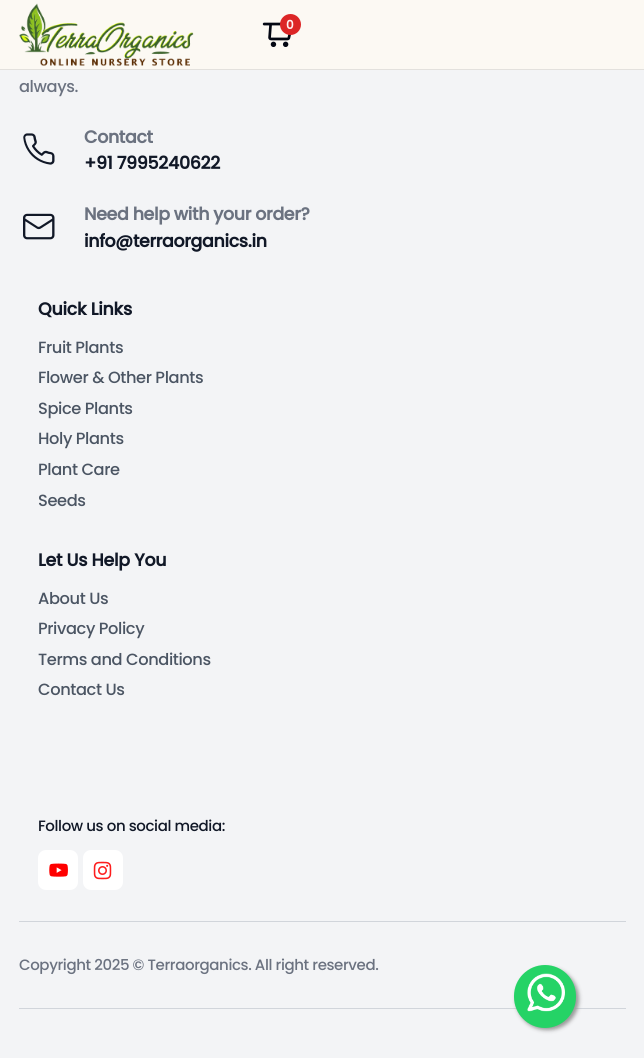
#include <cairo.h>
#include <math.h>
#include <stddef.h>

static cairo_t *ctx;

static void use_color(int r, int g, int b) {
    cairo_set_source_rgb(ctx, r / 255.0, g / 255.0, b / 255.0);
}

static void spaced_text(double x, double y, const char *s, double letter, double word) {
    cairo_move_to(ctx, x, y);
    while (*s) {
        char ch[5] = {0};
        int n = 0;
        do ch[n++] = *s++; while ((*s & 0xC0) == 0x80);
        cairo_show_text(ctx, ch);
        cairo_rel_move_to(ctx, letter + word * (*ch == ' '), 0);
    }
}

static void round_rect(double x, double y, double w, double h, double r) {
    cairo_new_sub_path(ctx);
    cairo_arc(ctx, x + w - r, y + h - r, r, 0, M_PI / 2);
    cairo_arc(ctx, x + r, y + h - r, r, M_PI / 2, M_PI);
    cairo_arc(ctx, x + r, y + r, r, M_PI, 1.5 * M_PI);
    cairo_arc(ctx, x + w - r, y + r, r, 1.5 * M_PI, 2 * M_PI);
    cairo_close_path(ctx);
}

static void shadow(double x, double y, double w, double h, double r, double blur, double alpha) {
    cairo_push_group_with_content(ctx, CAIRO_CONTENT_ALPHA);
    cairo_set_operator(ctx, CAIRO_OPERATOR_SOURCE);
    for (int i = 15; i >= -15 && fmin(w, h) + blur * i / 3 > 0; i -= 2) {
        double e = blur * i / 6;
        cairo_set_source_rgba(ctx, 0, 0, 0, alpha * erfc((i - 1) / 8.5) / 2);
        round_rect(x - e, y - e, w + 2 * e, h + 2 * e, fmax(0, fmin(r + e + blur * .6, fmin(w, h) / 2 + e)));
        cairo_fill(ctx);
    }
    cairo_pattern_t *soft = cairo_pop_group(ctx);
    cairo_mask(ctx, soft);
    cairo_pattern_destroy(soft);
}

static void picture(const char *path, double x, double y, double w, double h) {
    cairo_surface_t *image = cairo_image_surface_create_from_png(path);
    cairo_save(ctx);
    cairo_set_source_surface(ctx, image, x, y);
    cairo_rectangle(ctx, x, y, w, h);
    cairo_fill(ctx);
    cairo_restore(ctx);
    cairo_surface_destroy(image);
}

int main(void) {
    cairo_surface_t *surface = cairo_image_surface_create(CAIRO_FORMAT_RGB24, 644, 1058);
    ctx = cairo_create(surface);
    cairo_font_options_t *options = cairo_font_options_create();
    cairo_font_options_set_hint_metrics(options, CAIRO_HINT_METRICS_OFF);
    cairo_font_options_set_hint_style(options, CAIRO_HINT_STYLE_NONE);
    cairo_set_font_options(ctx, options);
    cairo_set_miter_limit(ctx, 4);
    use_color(243, 244, 246);
    cairo_paint(ctx);
    use_color(252, 249, 243);
    cairo_rectangle(ctx, 0, 0, 644, 69);
    cairo_fill(ctx);
    picture("img1.png", 19, 3, 175, 63);
    picture("img2.png", 262, 22, 30, 25);
    use_color(220, 38, 38);
    cairo_arc(ctx, 290.5, 24.5, 10.5, 0, 2 * M_PI);
    cairo_fill(ctx);
    cairo_select_font_face(ctx, "Poppins", CAIRO_FONT_SLANT_NORMAL, CAIRO_FONT_WEIGHT_BOLD);
    cairo_set_font_size(ctx, 12);
    use_color(254, 242, 242);
    spaced_text(286, 29, "0", -0.4, 0);
    use_color(227, 225, 221);
    cairo_rectangle(ctx, 0, 69, 644, 1);
    cairo_fill(ctx);
    cairo_select_font_face(ctx, "Poppins Medium", CAIRO_FONT_SLANT_NORMAL, CAIRO_FONT_WEIGHT_NORMAL);
    cairo_set_font_size(ctx, 16.25);
    use_color(107, 114, 128);
    spaced_text(19, 92, "always.", -0.4, 0);
    picture("img3.png", 23, 133, 32, 32);
    cairo_select_font_face(ctx, "Poppins", CAIRO_FONT_SLANT_NORMAL, CAIRO_FONT_WEIGHT_BOLD);
    cairo_set_font_size(ctx, 17.5);
    spaced_text(84, 143, "Contact", -0.4, 0);
    use_color(17, 24, 39);
    spaced_text(84, 169, "+91 7995240622", -0.4, 0);
    picture("img4.png", 23, 213, 32, 27);
    use_color(107, 114, 128);
    spaced_text(84, 220, "Need help with your order?", -0.4, 0);
    use_color(17, 24, 39);
    spaced_text(84, 247, "info@terraorganics.in", -0.4, 0);
    spaced_text(38, 315, "Quick Links", -0.3, 0);
    cairo_select_font_face(ctx, "Poppins Medium", CAIRO_FONT_SLANT_NORMAL, CAIRO_FONT_WEIGHT_NORMAL);
    cairo_set_font_size(ctx, 16.25);
    use_color(75, 85, 99);
    spaced_text(38, 353, "Fruit Plants", -0.4, 0);
    spaced_text(38, 383, "Flower & Other Plants", -0.4, 0);
    spaced_text(38, 414, "Spice Plants", -0.4, 0);
    spaced_text(38, 444, "Holy Plants", -0.4, 0);
    spaced_text(38, 475, "Plant Care", -0.4, 0);
    spaced_text(38, 506, "Seeds", -0.4, 0);
    cairo_select_font_face(ctx, "Poppins", CAIRO_FONT_SLANT_NORMAL, CAIRO_FONT_WEIGHT_BOLD);
    cairo_set_font_size(ctx, 17.5);
    use_color(17, 24, 39);
    spaced_text(38, 566, "Let Us Help You", -0.3, 0);
    cairo_select_font_face(ctx, "Poppins Medium", CAIRO_FONT_SLANT_NORMAL, CAIRO_FONT_WEIGHT_NORMAL);
    cairo_set_font_size(ctx, 16.25);
    use_color(75, 85, 99);
    spaced_text(38, 604, "About Us", -0.4, 0);
    spaced_text(38, 634, "Privacy Policy", -0.4, 0);
    spaced_text(38, 665, "Terms and Conditions", -0.4, 0);
    spaced_text(38, 695, "Contact Us", -0.4, 0);
    cairo_set_font_size(ctx, 15);
    use_color(17, 24, 39);
    spaced_text(38, 831, "Follow us on social media:", -0.4, 0);
    use_color(255, 255, 255);
    round_rect(38, 850, 40, 40, 8);
    cairo_fill(ctx);
    picture("img5.png", 49, 863, 19, 14);
    round_rect(83, 850, 40, 40, 8);
    cairo_fill(ctx);
    picture("img6.png", 93, 861, 19, 19);
    use_color(209, 213, 219);
    cairo_rectangle(ctx, 19, 921, 607, 1);
    cairo_fill(ctx);
    use_color(107, 114, 128);
    spaced_text(19, 970, "Copyright 2025 © Terraorganics. All right reserved.", -0.4, 0);
    use_color(209, 213, 219);
    cairo_rectangle(ctx, 19, 1008, 607, 1);
    cairo_fill(ctx);
    use_color(153, 153, 153);
    shadow(516, 968, 63, 62, 31, 2, 1);
    use_color(37, 211, 102);
    round_rect(514, 965, 62, 63, 31);
    cairo_fill(ctx);
    picture("img7.png", 527, 973, 38, 39);
    cairo_surface_write_to_png(surface, "result.png");
    cairo_font_options_destroy(options);
    cairo_destroy(ctx);
    cairo_surface_destroy(surface);
    return 0;
}
